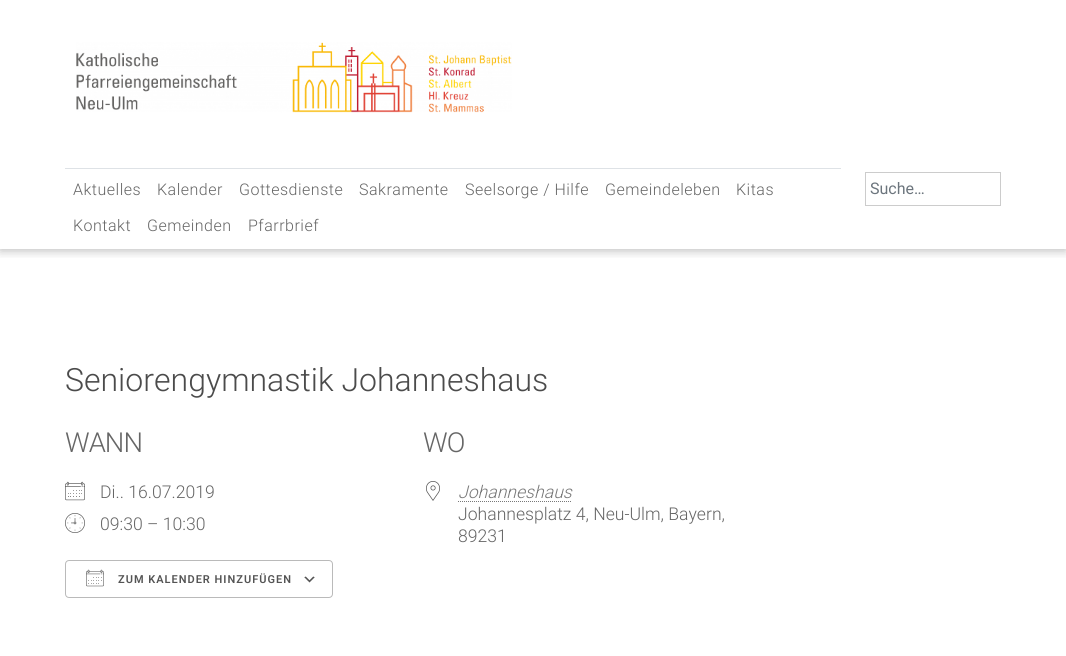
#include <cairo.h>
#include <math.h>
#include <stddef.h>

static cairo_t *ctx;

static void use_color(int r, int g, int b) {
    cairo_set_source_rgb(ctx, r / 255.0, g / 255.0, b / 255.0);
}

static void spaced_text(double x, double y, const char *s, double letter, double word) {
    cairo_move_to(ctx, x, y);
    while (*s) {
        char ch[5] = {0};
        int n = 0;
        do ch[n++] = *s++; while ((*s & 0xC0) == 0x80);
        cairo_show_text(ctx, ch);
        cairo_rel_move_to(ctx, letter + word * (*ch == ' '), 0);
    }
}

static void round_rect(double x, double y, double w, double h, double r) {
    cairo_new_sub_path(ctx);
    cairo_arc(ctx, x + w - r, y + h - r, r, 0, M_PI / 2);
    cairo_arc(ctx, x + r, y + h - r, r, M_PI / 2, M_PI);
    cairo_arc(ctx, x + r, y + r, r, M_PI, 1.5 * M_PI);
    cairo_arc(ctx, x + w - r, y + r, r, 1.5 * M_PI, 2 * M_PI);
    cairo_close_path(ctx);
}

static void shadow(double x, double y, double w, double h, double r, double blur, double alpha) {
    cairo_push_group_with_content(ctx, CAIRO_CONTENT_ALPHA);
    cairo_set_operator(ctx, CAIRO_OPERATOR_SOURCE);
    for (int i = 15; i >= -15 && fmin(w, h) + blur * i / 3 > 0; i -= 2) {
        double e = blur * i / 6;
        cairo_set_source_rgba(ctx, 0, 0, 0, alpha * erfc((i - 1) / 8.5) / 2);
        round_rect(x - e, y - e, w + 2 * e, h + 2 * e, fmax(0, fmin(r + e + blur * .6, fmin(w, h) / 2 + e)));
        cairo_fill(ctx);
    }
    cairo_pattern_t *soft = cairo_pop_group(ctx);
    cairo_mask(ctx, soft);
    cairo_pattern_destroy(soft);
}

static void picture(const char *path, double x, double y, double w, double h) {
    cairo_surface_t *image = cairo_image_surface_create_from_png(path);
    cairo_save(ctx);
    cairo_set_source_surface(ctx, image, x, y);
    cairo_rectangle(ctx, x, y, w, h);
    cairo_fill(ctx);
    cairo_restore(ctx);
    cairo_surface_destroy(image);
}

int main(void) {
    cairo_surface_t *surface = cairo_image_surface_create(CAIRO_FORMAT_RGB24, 1066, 656);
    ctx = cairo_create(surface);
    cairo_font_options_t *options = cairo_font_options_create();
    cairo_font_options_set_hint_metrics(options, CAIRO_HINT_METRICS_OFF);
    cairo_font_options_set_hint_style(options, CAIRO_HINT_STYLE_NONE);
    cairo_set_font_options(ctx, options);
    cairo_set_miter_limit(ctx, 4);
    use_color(255, 255, 255);
    cairo_paint(ctx);
    cairo_save(ctx);
    cairo_rectangle(ctx, 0, 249, 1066, 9);
    cairo_clip(ctx);
    use_color(0, 0, 0);
    shadow(0, 2, 1066, 249, 0, 5, 0.25);
    cairo_restore(ctx);
    picture("img1.png", 76, 42, 436, 71);
    use_color(222, 226, 230);
    cairo_rectangle(ctx, 65, 168, 776, 1);
    cairo_fill(ctx);
    cairo_select_font_face(ctx, "Roboto Light", CAIRO_FONT_SLANT_NORMAL, CAIRO_FONT_WEIGHT_NORMAL);
    cairo_set_font_size(ctx, 16);
    use_color(102, 102, 102);
    spaced_text(73, 195, "Aktuelles", 0.5, 0);
    spaced_text(157, 195, "Kalender", 0.5, 0);
    spaced_text(239, 195, "Gottesdienste", 0.5, 0);
    spaced_text(359, 195, "Sakramente", 0.5, 0);
    spaced_text(465, 195, "Seelsorge / Hilfe", 0.5, 0);
    spaced_text(605, 195, "Gemeindeleben", 0.5, 0);
    spaced_text(736, 195, "Kitas", 0.5, 0);
    spaced_text(73, 231, "Kontakt", 0.5, 0);
    spaced_text(147, 231, "Gemeinden", 0.5, 0);
    spaced_text(248, 231, "Pfarrbrief", 0.5, 0);
    cairo_rectangle(ctx, 865.5, 172.5, 135, 33);
    use_color(204, 204, 204);
    cairo_set_line_width(ctx, 1);
    cairo_stroke(ctx);
    cairo_select_font_face(ctx, "Roboto", CAIRO_FONT_SLANT_NORMAL, CAIRO_FONT_WEIGHT_NORMAL);
    use_color(108, 117, 125);
    cairo_move_to(ctx, 870, 194);
    cairo_show_text(ctx, "Suche…");
    cairo_select_font_face(ctx, "Roboto Light", CAIRO_FONT_SLANT_NORMAL, CAIRO_FONT_WEIGHT_NORMAL);
    cairo_set_font_size(ctx, 32);
    use_color(75, 75, 75);
    cairo_move_to(ctx, 65, 391);
    cairo_show_text(ctx, "Seniorengymnastik Johanneshaus");
    cairo_set_font_size(ctx, 27.5);
    use_color(102, 102, 102);
    spaced_text(65, 452, "WANN", -1, 0);
    picture("img2.png", 65, 481, 20, 20);
    cairo_set_font_size(ctx, 17.6);
    cairo_move_to(ctx, 100, 498);
    cairo_show_text(ctx, "Di.. 16.07.2019");
    picture("img3.png", 65, 513, 20, 20);
    cairo_move_to(ctx, 100, 530);
    cairo_show_text(ctx, "09:30 – 10:30");
    picture("img4.png", 304, 576, 11, 7);
    round_rect(65.5, 560.5, 267, 37, 3.5);
    use_color(186, 186, 186);
    cairo_stroke(ctx);
    picture("img5.png", 86, 569, 18, 18);
    cairo_select_font_face(ctx, "Roboto SemiBold", CAIRO_FONT_SLANT_NORMAL, CAIRO_FONT_WEIGHT_NORMAL);
    cairo_set_font_size(ctx, 11);
    use_color(84, 84, 84);
    spaced_text(118, 583, "ZUM KALENDER HINZUFÜGEN", 1, 0);
    cairo_select_font_face(ctx, "Roboto Light", CAIRO_FONT_SLANT_NORMAL, CAIRO_FONT_WEIGHT_NORMAL);
    cairo_set_font_size(ctx, 27.5);
    use_color(102, 102, 102);
    spaced_text(423, 452, "WO", -1, 0);
    picture("img6.png", 426, 481, 14, 20);
    cairo_select_font_face(ctx, "Roboto Light", CAIRO_FONT_SLANT_ITALIC, CAIRO_FONT_WEIGHT_NORMAL);
    cairo_set_font_size(ctx, 17.6);
    use_color(120, 120, 120);
    cairo_move_to(ctx, 458, 498);
    cairo_show_text(ctx, "Johanneshaus");
    cairo_new_path(ctx);
    cairo_move_to(ctx, 458, 501.5);
    cairo_line_to(ctx, 571.5, 501.5);
    cairo_set_dash(ctx, (double[]){1, 1}, 2, 0);
    cairo_stroke(ctx);
    cairo_select_font_face(ctx, "Roboto Light", CAIRO_FONT_SLANT_NORMAL, CAIRO_FONT_WEIGHT_NORMAL);
    use_color(102, 102, 102);
    cairo_move_to(ctx, 458, 520);
    cairo_show_text(ctx, "Johannesplatz 4, Neu-Ulm, Bayern,");
    cairo_move_to(ctx, 458, 542);
    cairo_show_text(ctx, "89231");
    cairo_surface_write_to_png(surface, "result.png");
    cairo_font_options_destroy(options);
    cairo_destroy(ctx);
    cairo_surface_destroy(surface);
    return 0;
}
